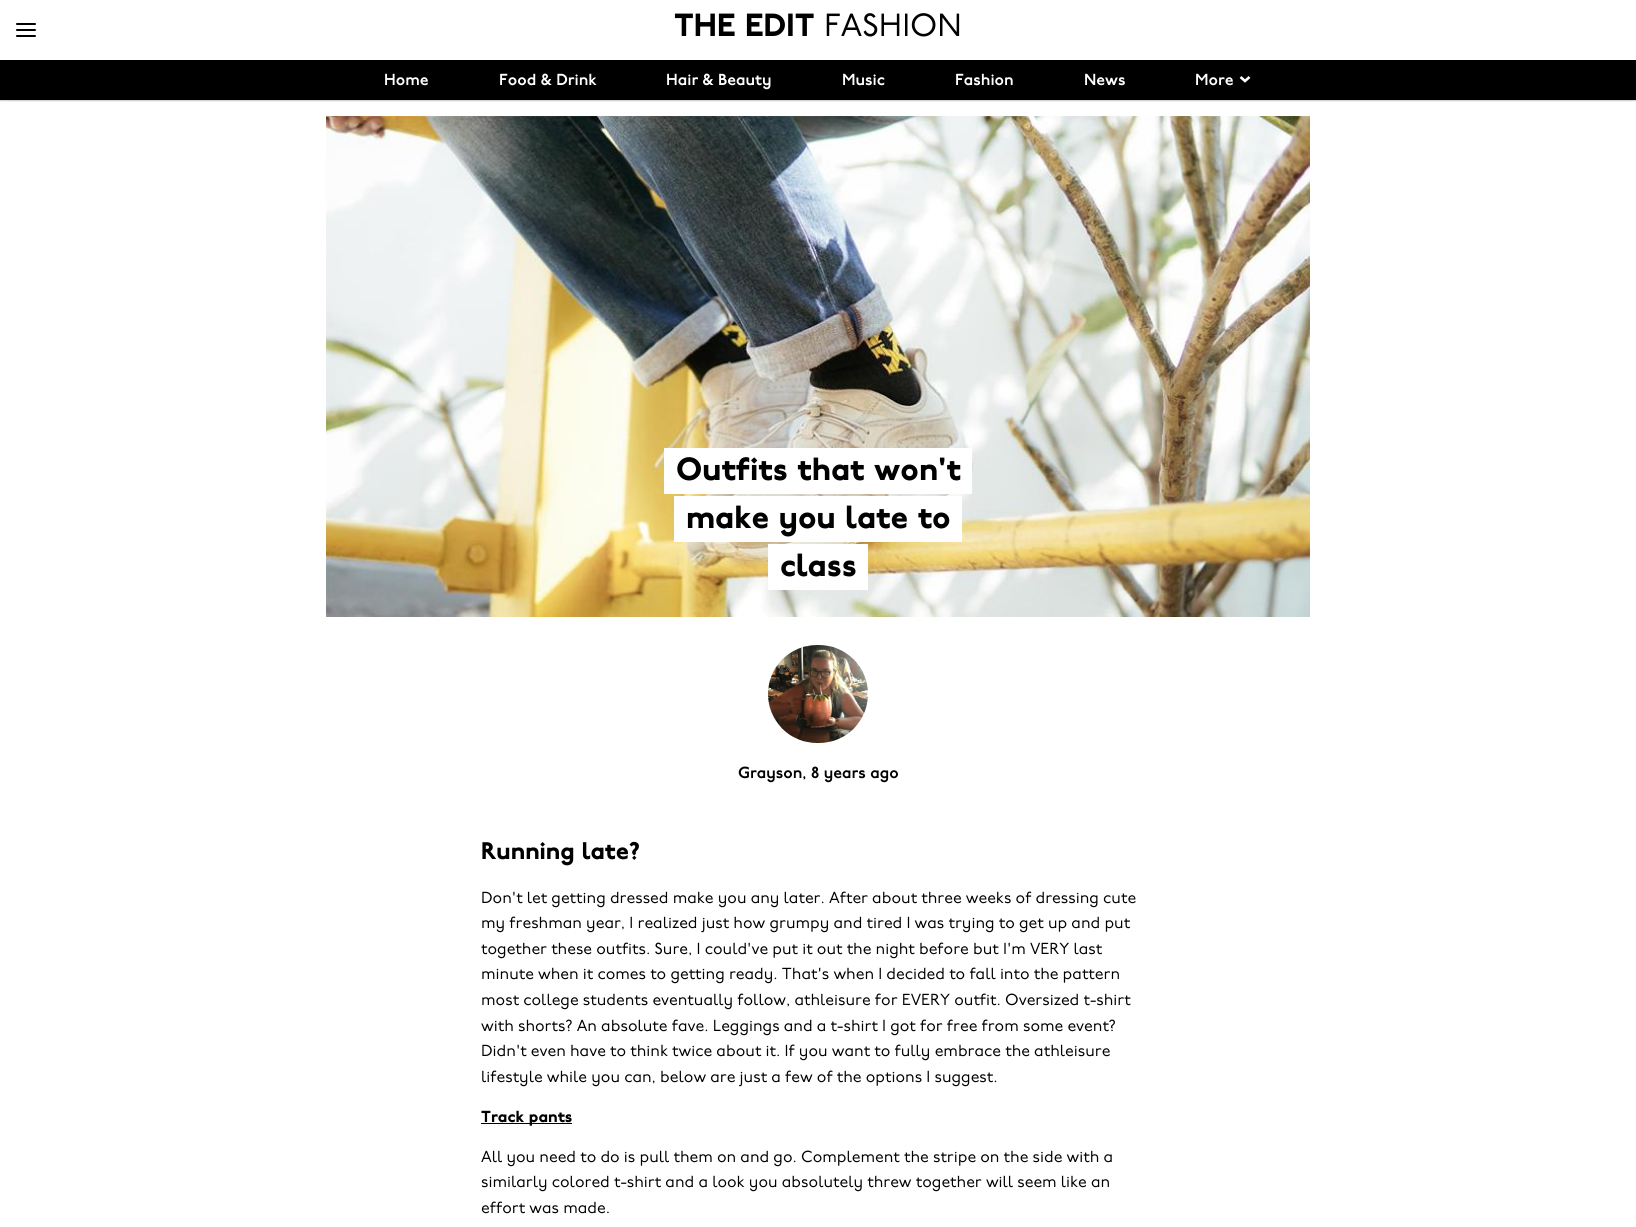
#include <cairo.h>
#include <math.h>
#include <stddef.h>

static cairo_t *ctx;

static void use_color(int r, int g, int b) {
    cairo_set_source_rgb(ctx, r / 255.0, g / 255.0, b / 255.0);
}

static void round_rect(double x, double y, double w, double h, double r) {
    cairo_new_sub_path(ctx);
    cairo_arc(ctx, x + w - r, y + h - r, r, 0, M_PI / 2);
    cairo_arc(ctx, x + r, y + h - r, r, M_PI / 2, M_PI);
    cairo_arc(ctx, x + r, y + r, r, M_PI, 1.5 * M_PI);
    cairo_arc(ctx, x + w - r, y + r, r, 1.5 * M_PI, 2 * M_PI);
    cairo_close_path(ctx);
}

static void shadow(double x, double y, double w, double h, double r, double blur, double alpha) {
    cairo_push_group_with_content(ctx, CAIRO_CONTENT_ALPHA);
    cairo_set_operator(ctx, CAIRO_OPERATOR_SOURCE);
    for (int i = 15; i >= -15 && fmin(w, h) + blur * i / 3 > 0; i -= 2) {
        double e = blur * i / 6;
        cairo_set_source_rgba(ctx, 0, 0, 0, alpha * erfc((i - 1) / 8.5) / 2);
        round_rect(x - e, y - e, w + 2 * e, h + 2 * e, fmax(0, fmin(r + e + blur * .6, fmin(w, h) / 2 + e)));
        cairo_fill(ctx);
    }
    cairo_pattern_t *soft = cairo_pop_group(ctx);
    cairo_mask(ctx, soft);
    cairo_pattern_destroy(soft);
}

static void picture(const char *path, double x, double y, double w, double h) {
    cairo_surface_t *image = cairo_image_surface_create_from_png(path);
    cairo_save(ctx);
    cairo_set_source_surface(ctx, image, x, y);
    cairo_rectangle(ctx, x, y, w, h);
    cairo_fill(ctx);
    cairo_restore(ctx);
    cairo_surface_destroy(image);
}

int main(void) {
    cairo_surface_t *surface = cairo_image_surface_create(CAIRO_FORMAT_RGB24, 1636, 1227);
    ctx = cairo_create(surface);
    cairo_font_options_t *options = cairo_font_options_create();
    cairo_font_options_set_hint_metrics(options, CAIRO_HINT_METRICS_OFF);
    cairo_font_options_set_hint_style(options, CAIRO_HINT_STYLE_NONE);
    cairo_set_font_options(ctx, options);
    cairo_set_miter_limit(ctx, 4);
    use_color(255, 255, 255);
    cairo_paint(ctx);
    cairo_save(ctx);
    cairo_rectangle(ctx, 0, 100, 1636, 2);
    cairo_clip(ctx);
    use_color(0, 0, 0);
    shadow(0, 1, 1636, 100, 0, 0.5, 0.2);
    cairo_restore(ctx);
    use_color(0, 0, 0);
    round_rect(16, 29, 20, 2, 1);
    cairo_fill(ctx);
    round_rect(16, 23, 20, 2, 1);
    cairo_fill(ctx);
    round_rect(16, 35, 20, 2, 1);
    cairo_fill(ctx);
    cairo_select_font_face(ctx, "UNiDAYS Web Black", CAIRO_FONT_SLANT_NORMAL, CAIRO_FONT_WEIGHT_NORMAL);
    cairo_set_font_size(ctx, 32);
    cairo_move_to(ctx, 674, 36);
    cairo_show_text(ctx, "THE EDIT");
    cairo_select_font_face(ctx, "UNiDAYS Web", CAIRO_FONT_SLANT_NORMAL, CAIRO_FONT_WEIGHT_NORMAL);
    cairo_move_to(ctx, 824, 36);
    cairo_show_text(ctx, "FASHION");
    cairo_rectangle(ctx, 0, 60, 1636, 40);
    cairo_fill(ctx);
    cairo_select_font_face(ctx, "UNiDAYS Web SemiBold", CAIRO_FONT_SLANT_NORMAL, CAIRO_FONT_WEIGHT_NORMAL);
    cairo_set_font_size(ctx, 16);
    use_color(255, 255, 255);
    cairo_move_to(ctx, 384, 85);
    cairo_show_text(ctx, "Home");
    cairo_move_to(ctx, 499, 85);
    cairo_show_text(ctx, "Food & Drink");
    cairo_move_to(ctx, 666, 85);
    cairo_show_text(ctx, "Hair & Beauty");
    cairo_move_to(ctx, 842, 85);
    cairo_show_text(ctx, "Music");
    cairo_move_to(ctx, 955, 85);
    cairo_show_text(ctx, "Fashion");
    cairo_move_to(ctx, 1084, 85);
    cairo_show_text(ctx, "News");
    cairo_move_to(ctx, 1195, 85);
    cairo_show_text(ctx, "More");
    cairo_new_path(ctx);
    cairo_move_to(ctx, 1240.5, 77);
    cairo_line_to(ctx, 1245, 81);
    cairo_line_to(ctx, 1249.5, 77);
    cairo_set_line_width(ctx, 2.6);
    cairo_stroke(ctx);
    picture("img1.png", 326, 116, 984, 501);
    cairo_rectangle(ctx, 676, 448, 296, 46);
    cairo_fill(ctx);
    cairo_select_font_face(ctx, "UNiDAYS Web Black", CAIRO_FONT_SLANT_NORMAL, CAIRO_FONT_WEIGHT_NORMAL);
    cairo_set_font_size(ctx, 32);
    use_color(0, 0, 0);
    cairo_move_to(ctx, 676, 480);
    cairo_show_text(ctx, "Outfits that won't");
    use_color(255, 255, 255);
    cairo_rectangle(ctx, 664, 448, 12, 46);
    cairo_fill(ctx);
    cairo_rectangle(ctx, 686, 496, 276, 46);
    cairo_fill(ctx);
    use_color(0, 0, 0);
    cairo_move_to(ctx, 686, 528);
    cairo_show_text(ctx, "make you late to");
    use_color(255, 255, 255);
    cairo_rectangle(ctx, 674, 496, 12, 46);
    cairo_fill(ctx);
    cairo_rectangle(ctx, 780, 544, 88, 46);
    cairo_fill(ctx);
    use_color(0, 0, 0);
    cairo_move_to(ctx, 780, 576);
    cairo_show_text(ctx, "class");
    use_color(255, 255, 255);
    cairo_rectangle(ctx, 768, 544, 12, 46);
    cairo_fill(ctx);
    picture("img2.png", 768, 645, 100, 98);
    cairo_select_font_face(ctx, "UNiDAYS Web SemiBold", CAIRO_FONT_SLANT_NORMAL, CAIRO_FONT_WEIGHT_NORMAL);
    cairo_set_font_size(ctx, 16);
    use_color(0, 0, 0);
    cairo_move_to(ctx, 738, 778);
    cairo_show_text(ctx, "Grayson, 8 years ago");
    cairo_select_font_face(ctx, "UNiDAYS Web Black", CAIRO_FONT_SLANT_NORMAL, CAIRO_FONT_WEIGHT_NORMAL);
    cairo_set_font_size(ctx, 24);
    cairo_move_to(ctx, 481, 859);
    cairo_show_text(ctx, "Running late?");
    cairo_select_font_face(ctx, "UNiDAYS Web", CAIRO_FONT_SLANT_NORMAL, CAIRO_FONT_WEIGHT_NORMAL);
    cairo_set_font_size(ctx, 16);
    cairo_move_to(ctx, 481, 903);
    cairo_show_text(ctx, "Don't let getting dressed make you any later. After about three weeks of dressing cute");
    cairo_move_to(ctx, 481, 928);
    cairo_show_text(ctx, "my freshman year, I realized just how grumpy and tired I was trying to get up and put");
    cairo_move_to(ctx, 481, 954);
    cairo_show_text(ctx, "together these outfits. Sure, I could've put it out the night before but I'm VERY last");
    cairo_move_to(ctx, 481, 979);
    cairo_show_text(ctx, "minute when it comes to getting ready. That's when I decided to fall into the pattern");
    cairo_move_to(ctx, 481, 1005);
    cairo_show_text(ctx, "most college students eventually follow, athleisure for EVERY outfit. Oversized t-shirt");
    cairo_move_to(ctx, 481, 1031);
    cairo_show_text(ctx, "with shorts? An absolute fave. Leggings and a t-shirt I got for free from some event?");
    cairo_move_to(ctx, 481, 1056);
    cairo_show_text(ctx, "Didn't even have to think twice about it. If you want to fully embrace the athleisure");
    cairo_move_to(ctx, 481, 1082);
    cairo_show_text(ctx, "lifestyle while you can, below are just a few of the options I suggest.");
    cairo_rectangle(ctx, 481, 1123, 91, 1);
    cairo_fill(ctx);
    cairo_select_font_face(ctx, "UNiDAYS Web Black", CAIRO_FONT_SLANT_NORMAL, CAIRO_FONT_WEIGHT_NORMAL);
    cairo_move_to(ctx, 481, 1122);
    cairo_show_text(ctx, "Track pants");
    cairo_select_font_face(ctx, "UNiDAYS Web", CAIRO_FONT_SLANT_NORMAL, CAIRO_FONT_WEIGHT_NORMAL);
    cairo_move_to(ctx, 481, 1162);
    cairo_show_text(ctx, "All you need to do is pull them on and go. Complement the stripe on the side with a");
    cairo_move_to(ctx, 481, 1187);
    cairo_show_text(ctx, "similarly colored t-shirt and a look you absolutely threw together will seem like an");
    cairo_move_to(ctx, 481, 1213);
    cairo_show_text(ctx, "effort was made.");
    cairo_surface_write_to_png(surface, "result.png");
    cairo_font_options_destroy(options);
    cairo_destroy(ctx);
    cairo_surface_destroy(surface);
    return 0;
}
